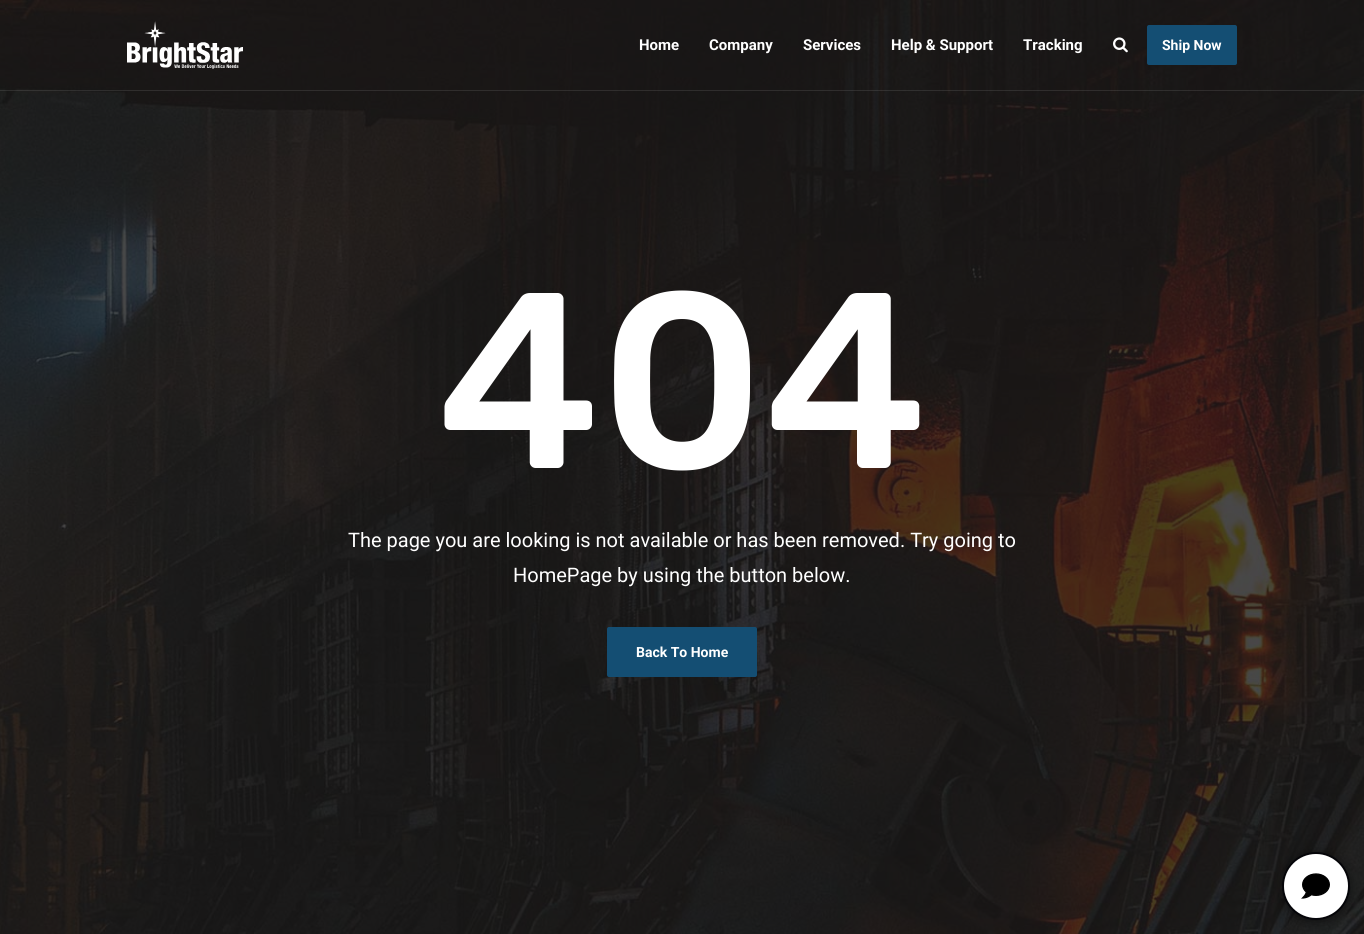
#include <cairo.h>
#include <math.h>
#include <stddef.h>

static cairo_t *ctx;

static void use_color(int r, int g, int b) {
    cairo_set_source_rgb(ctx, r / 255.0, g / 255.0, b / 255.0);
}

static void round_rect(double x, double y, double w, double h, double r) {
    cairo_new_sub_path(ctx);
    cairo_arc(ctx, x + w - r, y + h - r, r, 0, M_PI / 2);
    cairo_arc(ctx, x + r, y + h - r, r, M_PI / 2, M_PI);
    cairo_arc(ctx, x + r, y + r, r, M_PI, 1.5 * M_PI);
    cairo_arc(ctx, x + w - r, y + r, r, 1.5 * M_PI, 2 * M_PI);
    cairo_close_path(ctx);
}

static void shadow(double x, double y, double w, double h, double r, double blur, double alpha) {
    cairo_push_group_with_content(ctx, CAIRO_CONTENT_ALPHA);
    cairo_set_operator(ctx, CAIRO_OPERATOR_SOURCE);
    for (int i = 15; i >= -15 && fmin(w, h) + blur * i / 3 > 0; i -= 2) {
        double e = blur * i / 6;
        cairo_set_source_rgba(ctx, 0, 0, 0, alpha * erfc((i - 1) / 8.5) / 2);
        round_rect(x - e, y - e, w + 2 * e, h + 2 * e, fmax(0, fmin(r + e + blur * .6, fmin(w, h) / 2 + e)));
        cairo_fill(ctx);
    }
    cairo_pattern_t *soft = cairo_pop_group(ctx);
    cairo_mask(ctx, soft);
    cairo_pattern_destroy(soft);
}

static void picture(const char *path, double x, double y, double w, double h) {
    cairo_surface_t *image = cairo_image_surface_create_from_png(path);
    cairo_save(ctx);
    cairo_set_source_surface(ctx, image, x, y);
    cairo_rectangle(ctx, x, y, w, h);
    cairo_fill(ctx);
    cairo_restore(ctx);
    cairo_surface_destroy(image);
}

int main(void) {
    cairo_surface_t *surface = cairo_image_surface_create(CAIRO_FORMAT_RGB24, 1364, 934);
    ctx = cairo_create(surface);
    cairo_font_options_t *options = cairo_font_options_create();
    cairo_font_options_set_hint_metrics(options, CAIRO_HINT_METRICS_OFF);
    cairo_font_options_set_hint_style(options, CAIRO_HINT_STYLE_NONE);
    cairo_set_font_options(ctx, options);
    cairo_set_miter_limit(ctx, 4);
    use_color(255, 255, 255);
    cairo_paint(ctx);
    picture("img3.png", 0, 0, 1364, 934);
    cairo_set_source_rgba(ctx, 1, 1, 1, 0.1);
    cairo_rectangle(ctx, 0, 90, 1364, 1);
    cairo_fill(ctx);
    picture("img1.png", 127, 21, 116, 48);
    cairo_select_font_face(ctx, "Roboto", CAIRO_FONT_SLANT_NORMAL, CAIRO_FONT_WEIGHT_BOLD);
    cairo_set_font_size(ctx, 15);
    use_color(255, 255, 255);
    cairo_move_to(ctx, 639, 50);
    cairo_show_text(ctx, "Home");
    cairo_move_to(ctx, 709, 50);
    cairo_show_text(ctx, "Company");
    cairo_move_to(ctx, 803, 50);
    cairo_show_text(ctx, "Services");
    cairo_move_to(ctx, 891, 50);
    cairo_show_text(ctx, "Help & Support");
    cairo_move_to(ctx, 1023, 50);
    cairo_show_text(ctx, "Tracking");
    picture("img2.png", 1113, 37, 15, 16);
    use_color(20, 78, 115);
    round_rect(1148, 26, 88, 38, 1);
    cairo_fill_preserve(ctx);
    cairo_stroke(ctx);
    cairo_set_font_size(ctx, 14);
    use_color(255, 255, 255);
    cairo_move_to(ctx, 1162, 50);
    cairo_show_text(ctx, "Ship Now");
    cairo_select_font_face(ctx, "Rubik Medium", CAIRO_FONT_SLANT_NORMAL, CAIRO_FONT_WEIGHT_NORMAL);
    cairo_set_font_size(ctx, 250);
    cairo_move_to(ctx, 437, 468);
    cairo_show_text(ctx, "404");
    cairo_select_font_face(ctx, "Roboto", CAIRO_FONT_SLANT_NORMAL, CAIRO_FONT_WEIGHT_NORMAL);
    cairo_set_font_size(ctx, 20);
    cairo_move_to(ctx, 348, 547);
    cairo_show_text(ctx, "The page you are looking is not available or has been removed. Try going to");
    cairo_move_to(ctx, 513, 582);
    cairo_show_text(ctx, "HomePage by using the button below.");
    use_color(20, 78, 115);
    round_rect(608, 628, 148, 48, 1);
    cairo_fill_preserve(ctx);
    cairo_stroke(ctx);
    cairo_select_font_face(ctx, "Roboto", CAIRO_FONT_SLANT_NORMAL, CAIRO_FONT_WEIGHT_BOLD);
    cairo_set_font_size(ctx, 14);
    use_color(255, 255, 255);
    cairo_move_to(ctx, 636, 657);
    cairo_show_text(ctx, "Back To Home");
    use_color(0, 0, 0);
    shadow(1284, 856, 64, 64, 32, 6, 0.7);
    cairo_arc(ctx, 1316, 886, 33, 0, 2 * M_PI);
    use_color(5, 5, 9);
    cairo_stroke(ctx);
    use_color(255, 255, 255);
    cairo_arc(ctx, 1316, 886, 32, 0, 2 * M_PI);
    cairo_fill(ctx);
    picture("img4.png", 1301, 873, 29, 26);
    cairo_surface_write_to_png(surface, "result.png");
    cairo_font_options_destroy(options);
    cairo_destroy(ctx);
    cairo_surface_destroy(surface);
    return 0;
}
